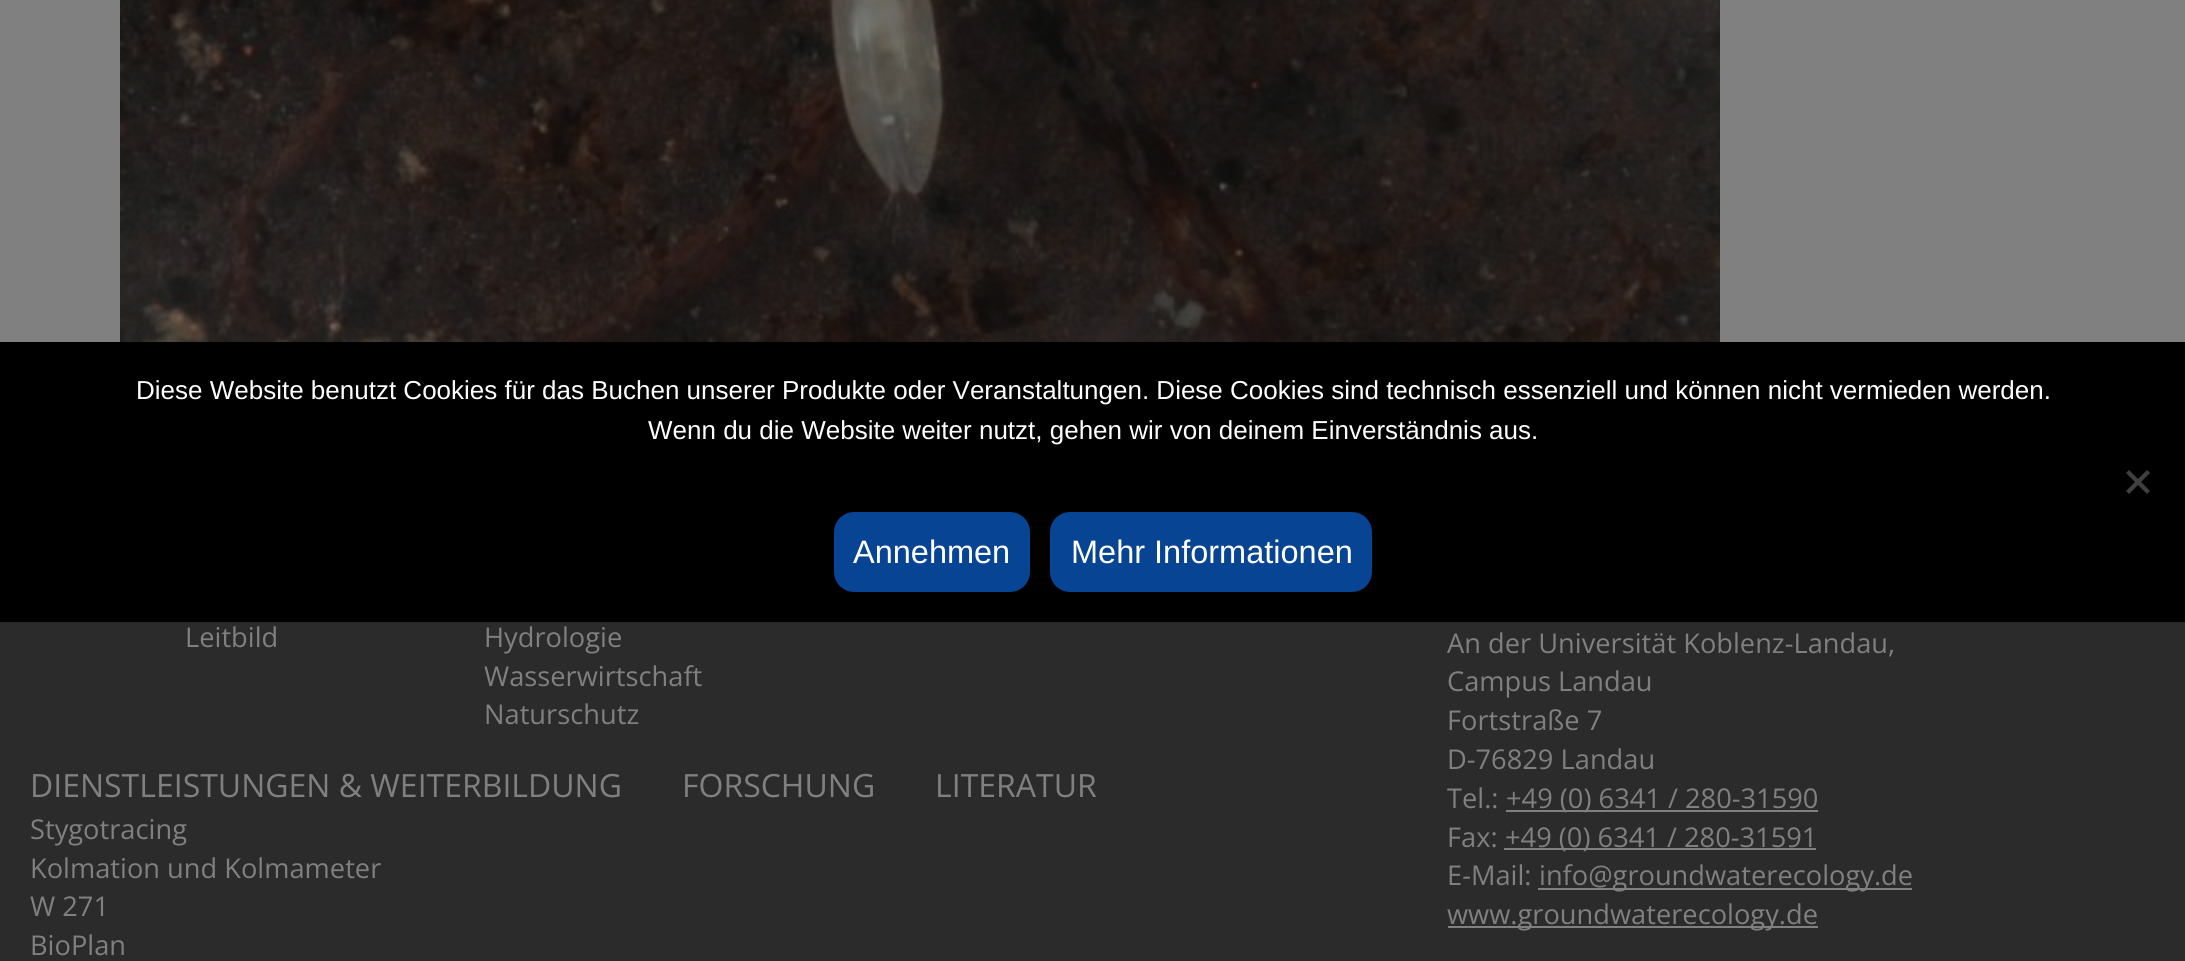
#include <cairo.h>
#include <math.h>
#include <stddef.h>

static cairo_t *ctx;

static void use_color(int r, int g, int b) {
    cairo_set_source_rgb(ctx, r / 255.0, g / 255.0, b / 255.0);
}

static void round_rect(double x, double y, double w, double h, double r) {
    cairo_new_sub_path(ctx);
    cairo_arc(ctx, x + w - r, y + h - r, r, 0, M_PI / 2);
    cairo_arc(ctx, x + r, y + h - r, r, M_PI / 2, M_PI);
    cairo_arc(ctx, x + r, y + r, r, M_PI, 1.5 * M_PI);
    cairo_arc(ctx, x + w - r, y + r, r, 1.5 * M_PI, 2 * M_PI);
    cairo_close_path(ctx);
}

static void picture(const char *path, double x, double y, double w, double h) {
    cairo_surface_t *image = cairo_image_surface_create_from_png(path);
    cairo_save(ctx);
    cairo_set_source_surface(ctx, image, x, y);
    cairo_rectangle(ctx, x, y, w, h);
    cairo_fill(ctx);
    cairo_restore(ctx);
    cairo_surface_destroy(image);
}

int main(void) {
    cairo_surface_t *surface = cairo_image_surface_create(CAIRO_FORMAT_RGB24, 2185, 961);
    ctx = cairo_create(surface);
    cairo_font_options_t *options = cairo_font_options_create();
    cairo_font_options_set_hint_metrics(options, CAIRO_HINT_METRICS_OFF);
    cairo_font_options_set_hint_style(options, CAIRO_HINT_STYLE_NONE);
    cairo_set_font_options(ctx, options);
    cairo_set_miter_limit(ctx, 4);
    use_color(128, 128, 128);
    cairo_paint(ctx);
    picture("img1.png", 120, 0, 1600, 342);
    use_color(0, 0, 0);
    cairo_rectangle(ctx, 0, 342, 2185, 280);
    cairo_fill(ctx);
    cairo_select_font_face(ctx, "Liberation Sans", CAIRO_FONT_SLANT_NORMAL, CAIRO_FONT_WEIGHT_NORMAL);
    cairo_set_font_size(ctx, 26);
    use_color(255, 255, 255);
    cairo_move_to(ctx, 136, 399);
    cairo_show_text(ctx, "Diese Website benutzt Cookies für das Buchen unserer Produkte oder Veranstaltungen. Diese Cookies sind technisch essenziell und können nicht vermieden werden.");
    cairo_move_to(ctx, 648, 439);
    cairo_show_text(ctx, "Wenn du die Website weiter nutzt, gehen wir von deinem Einverständnis aus.");
    use_color(64, 64, 64);
    cairo_new_path(ctx);
    cairo_move_to(ctx, 2147, 470);
    cairo_line_to(ctx, 2150, 473);
    cairo_line_to(ctx, 2129, 494);
    cairo_line_to(ctx, 2126, 491);
    cairo_close_path(ctx);
    cairo_fill(ctx);
    cairo_new_path(ctx);
    cairo_move_to(ctx, 2126, 473);
    cairo_line_to(ctx, 2129, 470);
    cairo_line_to(ctx, 2150, 491);
    cairo_line_to(ctx, 2147, 494);
    cairo_close_path(ctx);
    cairo_fill(ctx);
    use_color(7, 69, 148);
    round_rect(844, 522, 176, 60, 10);
    cairo_fill_preserve(ctx);
    cairo_set_line_width(ctx, 20);
    cairo_stroke(ctx);
    cairo_set_font_size(ctx, 32.5);
    use_color(255, 255, 255);
    cairo_move_to(ctx, 853, 563);
    cairo_show_text(ctx, "Annehmen");
    use_color(7, 69, 148);
    round_rect(1060, 522, 302, 60, 10);
    cairo_fill_preserve(ctx);
    cairo_stroke(ctx);
    use_color(255, 255, 255);
    cairo_move_to(ctx, 1071, 563);
    cairo_show_text(ctx, "Mehr Informationen");
    use_color(43, 43, 43);
    cairo_rectangle(ctx, 0, 622, 2185, 339);
    cairo_fill(ctx);
    cairo_select_font_face(ctx, "Open Sans", CAIRO_FONT_SLANT_NORMAL, CAIRO_FONT_WEIGHT_NORMAL);
    cairo_set_font_size(ctx, 27.25);
    use_color(128, 128, 128);
    cairo_move_to(ctx, 185, 647);
    cairo_show_text(ctx, "Leitbild");
    cairo_move_to(ctx, 484, 647);
    cairo_show_text(ctx, "Hydrologie");
    cairo_move_to(ctx, 484, 686);
    cairo_show_text(ctx, "Wasserwirtschaft");
    cairo_move_to(ctx, 484, 724);
    cairo_show_text(ctx, "Naturschutz");
    cairo_set_font_size(ctx, 32);
    cairo_move_to(ctx, 30, 797);
    cairo_show_text(ctx, "DIENSTLEISTUNGEN & WEITERBILDUNG");
    cairo_set_font_size(ctx, 27.25);
    cairo_move_to(ctx, 30, 839);
    cairo_show_text(ctx, "Stygotracing");
    cairo_move_to(ctx, 30, 878);
    cairo_show_text(ctx, "Kolmation und Kolmameter");
    cairo_move_to(ctx, 30, 916);
    cairo_show_text(ctx, "W 271");
    cairo_move_to(ctx, 30, 955);
    cairo_show_text(ctx, "BioPlan");
    cairo_set_font_size(ctx, 32);
    cairo_move_to(ctx, 682, 797);
    cairo_show_text(ctx, "FORSCHUNG");
    cairo_move_to(ctx, 935, 797);
    cairo_show_text(ctx, "LITERATUR");
    cairo_set_font_size(ctx, 27.25);
    cairo_move_to(ctx, 1447, 653);
    cairo_show_text(ctx, "An der Universität Koblenz-Landau,");
    cairo_move_to(ctx, 1447, 691);
    cairo_show_text(ctx, "Campus Landau");
    cairo_move_to(ctx, 1447, 730);
    cairo_show_text(ctx, "Fortstraße 7");
    cairo_move_to(ctx, 1447, 769);
    cairo_show_text(ctx, "D-76829 Landau");
    cairo_move_to(ctx, 1447, 808);
    cairo_show_text(ctx, "Tel.:");
    cairo_rectangle(ctx, 1506, 810, 312, 2);
    cairo_fill(ctx);
    cairo_move_to(ctx, 1506, 808);
    cairo_show_text(ctx, "+49 (0) 6341 / 280-31590");
    cairo_move_to(ctx, 1447, 847);
    cairo_show_text(ctx, "Fax:");
    cairo_rectangle(ctx, 1504, 848, 312, 2);
    cairo_fill(ctx);
    cairo_move_to(ctx, 1505, 847);
    cairo_show_text(ctx, "+49 (0) 6341 / 280-31591");
    cairo_move_to(ctx, 1447, 885);
    cairo_show_text(ctx, "E-Mail:");
    cairo_rectangle(ctx, 1538, 888, 374, 2);
    cairo_fill(ctx);
    cairo_move_to(ctx, 1539, 885);
    cairo_show_text(ctx, "info@groundwaterecology.de");
    cairo_rectangle(ctx, 1448, 926, 370, 2);
    cairo_fill(ctx);
    cairo_move_to(ctx, 1447, 924);
    cairo_show_text(ctx, "www.groundwaterecology.de");
    cairo_surface_write_to_png(surface, "result.png");
    cairo_font_options_destroy(options);
    cairo_destroy(ctx);
    cairo_surface_destroy(surface);
    return 0;
}
